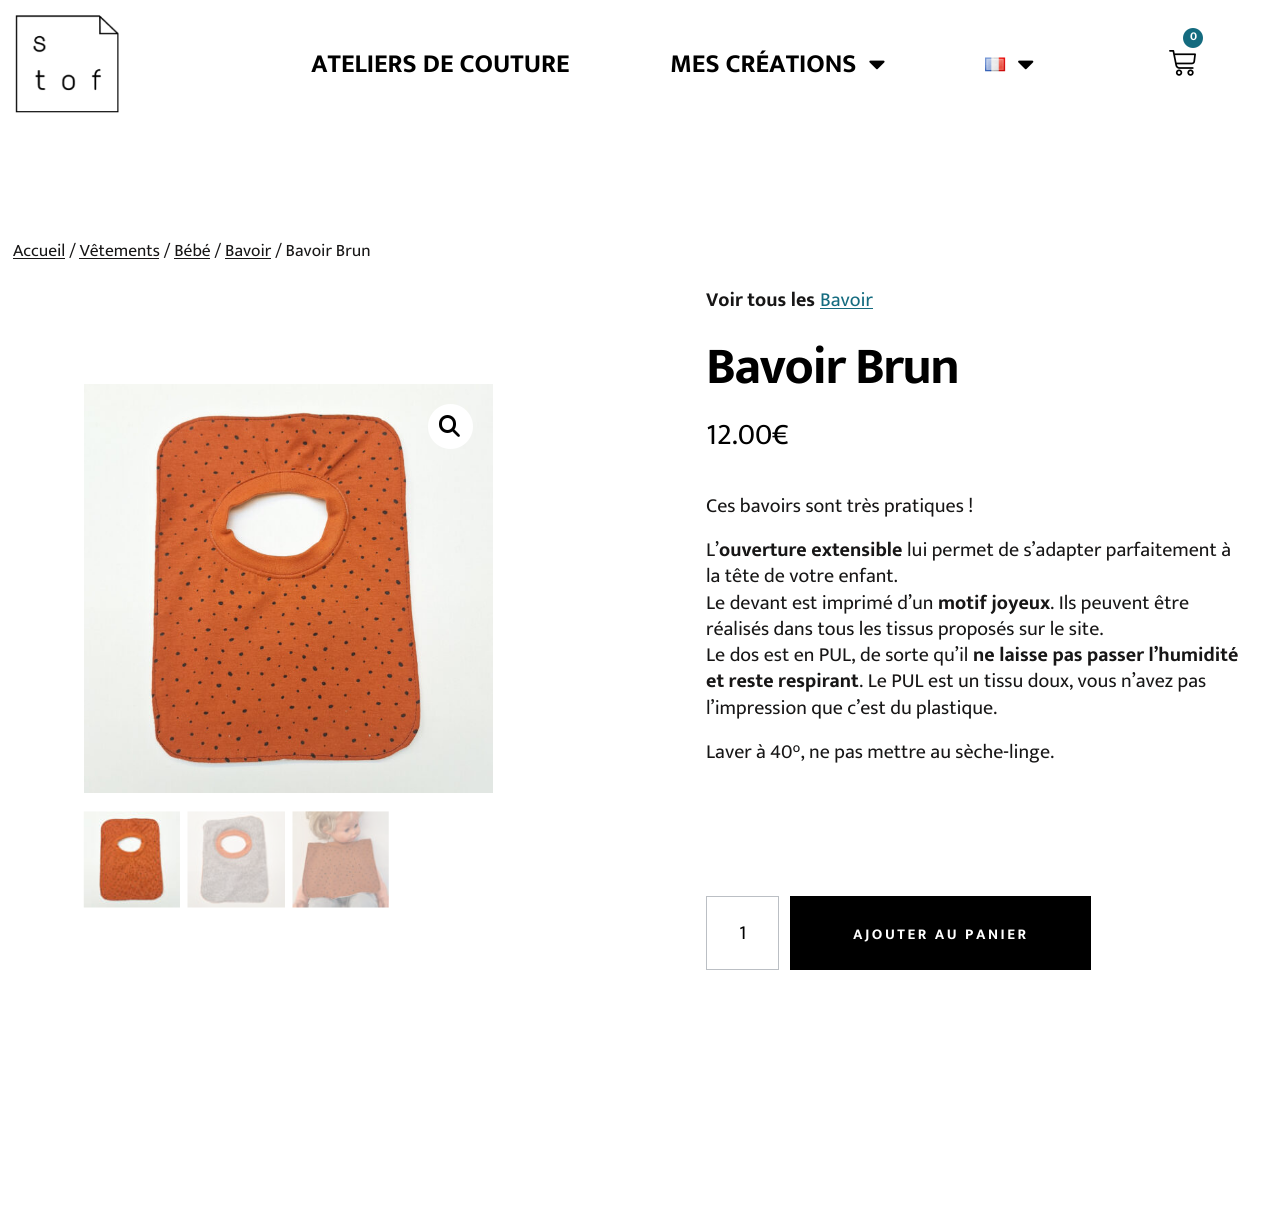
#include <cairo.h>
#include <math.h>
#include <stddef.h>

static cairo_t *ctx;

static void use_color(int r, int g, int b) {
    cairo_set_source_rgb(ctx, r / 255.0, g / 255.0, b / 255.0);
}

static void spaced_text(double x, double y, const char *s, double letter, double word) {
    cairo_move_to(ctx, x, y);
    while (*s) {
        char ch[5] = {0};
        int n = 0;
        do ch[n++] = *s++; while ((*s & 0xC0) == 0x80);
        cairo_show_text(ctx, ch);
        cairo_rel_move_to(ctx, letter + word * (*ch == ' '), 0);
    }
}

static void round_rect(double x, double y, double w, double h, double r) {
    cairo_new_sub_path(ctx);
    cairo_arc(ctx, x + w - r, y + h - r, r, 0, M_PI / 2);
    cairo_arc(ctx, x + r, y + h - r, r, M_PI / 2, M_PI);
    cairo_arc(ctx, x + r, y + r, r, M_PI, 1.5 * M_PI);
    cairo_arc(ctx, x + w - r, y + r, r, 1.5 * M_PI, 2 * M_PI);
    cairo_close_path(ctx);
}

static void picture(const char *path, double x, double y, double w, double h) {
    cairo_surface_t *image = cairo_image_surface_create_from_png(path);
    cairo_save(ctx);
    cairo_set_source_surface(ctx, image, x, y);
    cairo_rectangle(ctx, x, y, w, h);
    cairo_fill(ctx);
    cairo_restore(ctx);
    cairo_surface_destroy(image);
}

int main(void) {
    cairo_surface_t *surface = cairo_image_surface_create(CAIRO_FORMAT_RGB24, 1288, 1208);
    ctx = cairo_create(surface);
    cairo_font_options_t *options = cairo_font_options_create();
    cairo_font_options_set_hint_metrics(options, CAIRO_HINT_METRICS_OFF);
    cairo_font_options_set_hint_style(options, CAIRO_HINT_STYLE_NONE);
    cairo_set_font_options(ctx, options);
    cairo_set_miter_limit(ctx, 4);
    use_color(255, 255, 255);
    cairo_paint(ctx);
    picture("img1.png", 15, 15, 104, 98);
    use_color(20, 107, 127);
    cairo_arc(ctx, 1193, 38, 10, 0, 2 * M_PI);
    cairo_fill(ctx);
    cairo_select_font_face(ctx, "Mukta", CAIRO_FONT_SLANT_NORMAL, CAIRO_FONT_WEIGHT_BOLD);
    cairo_set_font_size(ctx, 12);
    use_color(255, 255, 255);
    spaced_text(1190, 40, "0", -1.5, 0);
    picture("img2.png", 1169, 50, 27, 26);
    cairo_set_font_size(ctx, 26.25);
    use_color(0, 0, 0);
    cairo_move_to(ctx, 311, 72);
    cairo_show_text(ctx, "ATELIERS DE COUTURE");
    cairo_move_to(ctx, 670, 72);
    cairo_show_text(ctx, "MES CRÉATIONS");
    picture("img3.png", 869, 60, 16, 10);
    picture("img4.png", 985, 57, 21, 15);
    picture("img5.png", 1018, 60, 16, 10);
    cairo_select_font_face(ctx, "Mukta", CAIRO_FONT_SLANT_NORMAL, CAIRO_FONT_WEIGHT_NORMAL);
    cairo_set_font_size(ctx, 17.5);
    use_color(23, 22, 22);
    cairo_move_to(ctx, 13, 256);
    cairo_show_text(ctx, "Accueil / Vêtements / Bébé / Bavoir / Bavoir Brun");
    cairo_rectangle(ctx, 13, 258, 52, 1);
    cairo_fill(ctx);
    cairo_rectangle(ctx, 79, 258, 80, 1);
    cairo_fill(ctx);
    cairo_rectangle(ctx, 174, 258, 36, 1);
    cairo_fill(ctx);
    cairo_rectangle(ctx, 225, 258, 46, 1);
    cairo_fill(ctx);
    picture("img6.png", 84, 384, 409, 409);
    use_color(255, 255, 255);
    cairo_arc(ctx, 450.5, 426.5, 22.5, 0, 2 * M_PI);
    cairo_fill(ctx);
    round_rect(440.5, 416.5, 14, 15, 7);
    use_color(0, 0, 0);
    cairo_set_line_width(ctx, 3);
    cairo_stroke(ctx);
    cairo_new_path(ctx);
    cairo_move_to(ctx, 452.5, 429.5);
    cairo_curve_to(ctx, 454, 428, 456, 431.5, 457, 432);
    cairo_curve_to(ctx, 457.5, 433, 461, 435, 459.5, 436.5);
    cairo_curve_to(ctx, 458, 438, 456, 434.5, 455, 434);
    cairo_curve_to(ctx, 454.5, 433, 451, 431, 452.5, 429.5);
    cairo_close_path(ctx);
    cairo_fill(ctx);
    picture("img7.png", 83, 811, 97, 97);
    picture("img8.png", 187, 811, 98, 97);
    picture("img9.png", 292, 811, 97, 97);
    cairo_select_font_face(ctx, "Mukta", CAIRO_FONT_SLANT_NORMAL, CAIRO_FONT_WEIGHT_BOLD);
    cairo_set_font_size(ctx, 20);
    use_color(23, 22, 22);
    cairo_move_to(ctx, 706, 306);
    cairo_show_text(ctx, "Voir tous les");
    cairo_select_font_face(ctx, "Mukta", CAIRO_FONT_SLANT_NORMAL, CAIRO_FONT_WEIGHT_NORMAL);
    use_color(20, 107, 127);
    cairo_move_to(ctx, 820, 306);
    cairo_show_text(ctx, "Bavoir");
    cairo_rectangle(ctx, 820, 308, 53, 1);
    cairo_fill(ctx);
    cairo_select_font_face(ctx, "Mukta", CAIRO_FONT_SLANT_NORMAL, CAIRO_FONT_WEIGHT_BOLD);
    cairo_set_font_size(ctx, 52.5);
    use_color(0, 0, 0);
    spaced_text(706, 383, "Bavoir Brun", -1.5, 0);
    cairo_select_font_face(ctx, "Mukta", CAIRO_FONT_SLANT_NORMAL, CAIRO_FONT_WEIGHT_NORMAL);
    cairo_set_font_size(ctx, 30);
    cairo_move_to(ctx, 706, 444);
    cairo_show_text(ctx, "12.00€");
    cairo_set_font_size(ctx, 20);
    use_color(23, 22, 22);
    cairo_move_to(ctx, 706, 512);
    cairo_show_text(ctx, "Ces bavoirs sont très pratiques !");
    cairo_move_to(ctx, 706, 556);
    cairo_show_text(ctx, "L’");
    cairo_select_font_face(ctx, "Mukta", CAIRO_FONT_SLANT_NORMAL, CAIRO_FONT_WEIGHT_BOLD);
    cairo_move_to(ctx, 719, 556);
    cairo_show_text(ctx, "ouverture extensible");
    cairo_select_font_face(ctx, "Mukta", CAIRO_FONT_SLANT_NORMAL, CAIRO_FONT_WEIGHT_NORMAL);
    cairo_move_to(ctx, 907, 556);
    cairo_show_text(ctx, "lui permet de s’adapter parfaitement à");
    cairo_move_to(ctx, 706, 582);
    cairo_show_text(ctx, "la tête de votre enfant.");
    cairo_move_to(ctx, 706, 609);
    cairo_show_text(ctx, "Le devant est imprimé d’un");
    cairo_select_font_face(ctx, "Mukta", CAIRO_FONT_SLANT_NORMAL, CAIRO_FONT_WEIGHT_BOLD);
    cairo_move_to(ctx, 938, 609);
    cairo_show_text(ctx, "motif joyeux");
    cairo_select_font_face(ctx, "Mukta", CAIRO_FONT_SLANT_NORMAL, CAIRO_FONT_WEIGHT_NORMAL);
    cairo_move_to(ctx, 1050, 609);
    cairo_show_text(ctx, ". Ils peuvent être");
    cairo_move_to(ctx, 706, 635);
    cairo_show_text(ctx, "réalisés dans tous les tissus proposés sur le site.");
    cairo_move_to(ctx, 706, 661);
    cairo_show_text(ctx, "Le dos est en PUL, de sorte qu’il");
    cairo_select_font_face(ctx, "Mukta", CAIRO_FONT_SLANT_NORMAL, CAIRO_FONT_WEIGHT_BOLD);
    cairo_move_to(ctx, 973, 661);
    cairo_show_text(ctx, "ne laisse pas passer l’humidité");
    cairo_move_to(ctx, 706, 687);
    cairo_show_text(ctx, "et reste respirant");
    cairo_select_font_face(ctx, "Mukta", CAIRO_FONT_SLANT_NORMAL, CAIRO_FONT_WEIGHT_NORMAL);
    cairo_move_to(ctx, 859, 687);
    cairo_show_text(ctx, ". Le PUL est un tissu doux, vous n’avez pas");
    cairo_move_to(ctx, 706, 714);
    cairo_show_text(ctx, "l’impression que c’est du plastique.");
    cairo_move_to(ctx, 706, 758);
    cairo_show_text(ctx, "Laver à 40°, ne pas mettre au sèche-linge.");
    cairo_rectangle(ctx, 706.5, 896.5, 72, 73);
    use_color(187, 191, 196);
    cairo_set_line_width(ctx, 1);
    cairo_stroke(ctx);
    use_color(0, 0, 0);
    cairo_move_to(ctx, 739, 939);
    cairo_show_text(ctx, "1");
    cairo_rectangle(ctx, 790, 896, 301, 74);
    cairo_fill(ctx);
    cairo_select_font_face(ctx, "Mukta", CAIRO_FONT_SLANT_NORMAL, CAIRO_FONT_WEIGHT_BOLD);
    cairo_set_font_size(ctx, 15);
    use_color(255, 255, 255);
    spaced_text(853, 939, "AJOUTER AU PANIER", 2.5, 0);
    cairo_surface_write_to_png(surface, "result.png");
    cairo_font_options_destroy(options);
    cairo_destroy(ctx);
    cairo_surface_destroy(surface);
    return 0;
}
